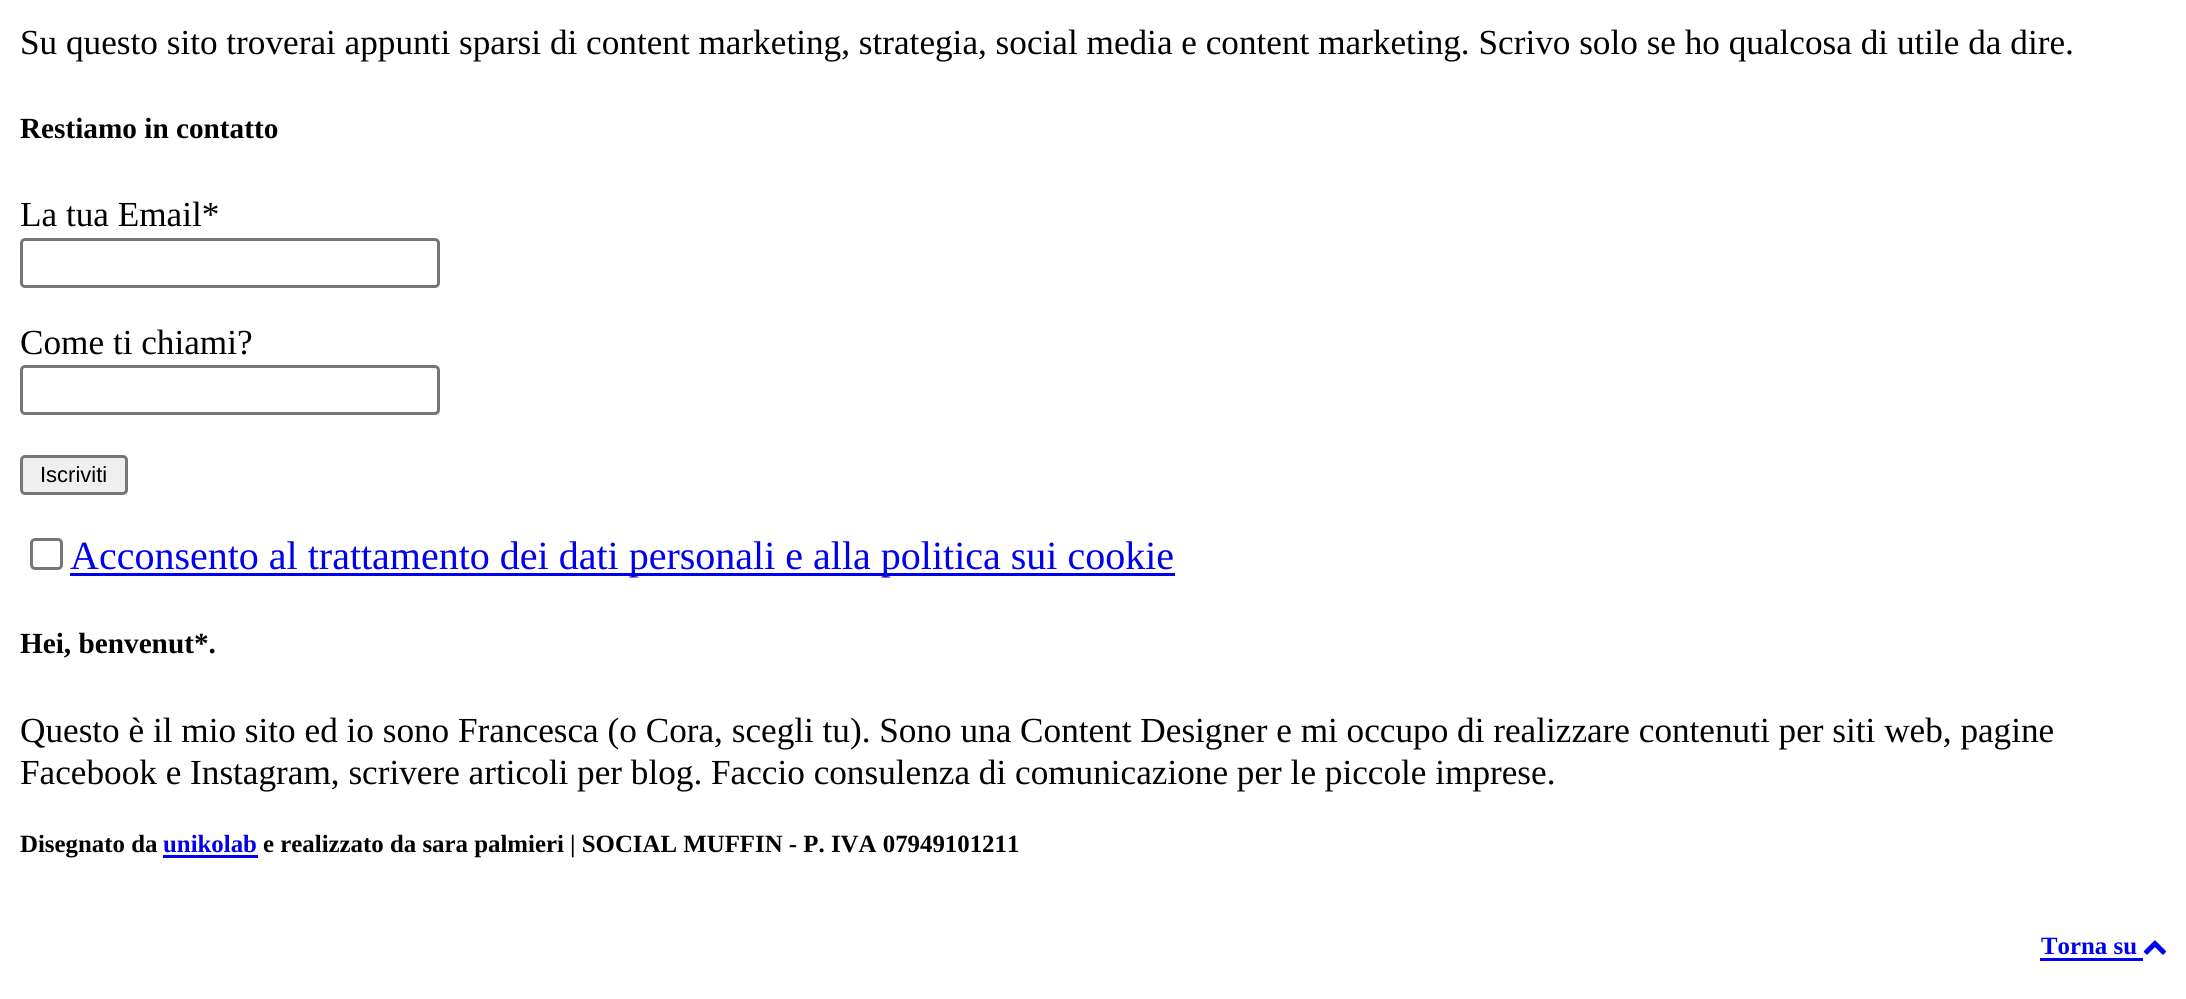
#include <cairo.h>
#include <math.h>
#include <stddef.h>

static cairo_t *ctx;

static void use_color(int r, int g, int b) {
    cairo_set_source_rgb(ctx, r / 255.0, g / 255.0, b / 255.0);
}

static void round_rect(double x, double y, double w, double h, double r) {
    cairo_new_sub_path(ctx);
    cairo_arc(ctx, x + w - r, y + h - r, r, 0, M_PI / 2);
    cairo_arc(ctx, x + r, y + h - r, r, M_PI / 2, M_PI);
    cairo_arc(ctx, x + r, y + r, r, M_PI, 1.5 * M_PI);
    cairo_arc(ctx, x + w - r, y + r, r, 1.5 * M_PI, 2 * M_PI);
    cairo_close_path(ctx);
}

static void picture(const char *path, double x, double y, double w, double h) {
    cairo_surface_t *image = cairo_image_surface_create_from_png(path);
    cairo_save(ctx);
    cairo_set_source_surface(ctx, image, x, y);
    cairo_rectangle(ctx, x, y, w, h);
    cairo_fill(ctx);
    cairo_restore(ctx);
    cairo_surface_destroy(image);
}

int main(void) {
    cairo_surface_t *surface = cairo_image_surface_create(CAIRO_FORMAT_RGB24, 2186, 999);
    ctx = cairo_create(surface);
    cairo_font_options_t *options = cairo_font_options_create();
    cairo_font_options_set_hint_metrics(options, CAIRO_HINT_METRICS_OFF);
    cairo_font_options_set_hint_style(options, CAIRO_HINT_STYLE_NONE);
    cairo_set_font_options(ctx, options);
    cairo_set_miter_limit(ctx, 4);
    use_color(255, 255, 255);
    cairo_paint(ctx);
    cairo_select_font_face(ctx, "Liberation Serif", CAIRO_FONT_SLANT_NORMAL, CAIRO_FONT_WEIGHT_NORMAL);
    cairo_set_font_size(ctx, 35.2);
    use_color(0, 0, 0);
    cairo_move_to(ctx, 20, 54);
    cairo_show_text(ctx, "Su questo sito troverai appunti sparsi di content marketing, strategia, social media e content marketing. Scrivo solo se ho qualcosa di utile da dire.");
    cairo_select_font_face(ctx, "Liberation Serif", CAIRO_FONT_SLANT_NORMAL, CAIRO_FONT_WEIGHT_BOLD);
    cairo_set_font_size(ctx, 29.25);
    cairo_move_to(ctx, 20, 138);
    cairo_show_text(ctx, "Restiamo in contatto");
    cairo_select_font_face(ctx, "Liberation Serif", CAIRO_FONT_SLANT_NORMAL, CAIRO_FONT_WEIGHT_NORMAL);
    cairo_set_font_size(ctx, 35.2);
    cairo_move_to(ctx, 20, 226);
    cairo_show_text(ctx, "La tua Email*");
    round_rect(21.5, 239.5, 417, 47, 3.5);
    use_color(118, 118, 118);
    cairo_set_line_width(ctx, 3);
    cairo_stroke(ctx);
    use_color(0, 0, 0);
    cairo_move_to(ctx, 20, 354);
    cairo_show_text(ctx, "Come ti chiami?");
    round_rect(21.5, 366.5, 417, 47, 3.5);
    use_color(118, 118, 118);
    cairo_stroke(ctx);
    use_color(239, 239, 239);
    round_rect(21.5, 456.5, 105, 37, 3.5);
    cairo_fill_preserve(ctx);
    use_color(118, 118, 118);
    cairo_stroke(ctx);
    cairo_select_font_face(ctx, "Liberation Sans", CAIRO_FONT_SLANT_NORMAL, CAIRO_FONT_WEIGHT_NORMAL);
    cairo_set_font_size(ctx, 22);
    use_color(0, 0, 0);
    cairo_move_to(ctx, 40, 482);
    cairo_show_text(ctx, "Iscriviti");
    round_rect(31.5, 539.5, 30, 29, 3.5);
    use_color(118, 118, 118);
    cairo_stroke(ctx);
    use_color(0, 0, 238);
    cairo_rectangle(ctx, 70, 573, 1105, 3);
    cairo_fill(ctx);
    cairo_select_font_face(ctx, "Liberation Serif", CAIRO_FONT_SLANT_NORMAL, CAIRO_FONT_WEIGHT_NORMAL);
    cairo_set_font_size(ctx, 40);
    cairo_move_to(ctx, 70, 569);
    cairo_show_text(ctx, "Acconsento al trattamento dei dati personali e alla politica sui cookie");
    cairo_select_font_face(ctx, "Liberation Serif", CAIRO_FONT_SLANT_NORMAL, CAIRO_FONT_WEIGHT_BOLD);
    cairo_set_font_size(ctx, 29.25);
    use_color(0, 0, 0);
    cairo_move_to(ctx, 20, 653);
    cairo_show_text(ctx, "Hei, benvenut*.");
    cairo_select_font_face(ctx, "Liberation Serif", CAIRO_FONT_SLANT_NORMAL, CAIRO_FONT_WEIGHT_NORMAL);
    cairo_set_font_size(ctx, 35.2);
    cairo_move_to(ctx, 20, 742);
    cairo_show_text(ctx, "Questo è il mio sito ed io sono Francesca (o Cora, scegli tu). Sono una Content Designer e mi occupo di realizzare contenuti per siti web, pagine");
    cairo_move_to(ctx, 20, 784);
    cairo_show_text(ctx, "Facebook e Instagram, scrivere articoli per blog. Faccio consulenza di comunicazione per le piccole imprese.");
    cairo_select_font_face(ctx, "Liberation Serif", CAIRO_FONT_SLANT_NORMAL, CAIRO_FONT_WEIGHT_BOLD);
    cairo_set_font_size(ctx, 24.85);
    cairo_move_to(ctx, 20, 852);
    cairo_show_text(ctx, "Disegnato da");
    use_color(0, 0, 238);
    cairo_move_to(ctx, 163, 852);
    cairo_show_text(ctx, "unikolab");
    cairo_rectangle(ctx, 163, 855, 95, 3);
    cairo_fill(ctx);
    use_color(0, 0, 0);
    cairo_move_to(ctx, 263, 852);
    cairo_show_text(ctx, "e realizzato da sara palmieri | SOCIAL MUFFIN - P. IVA 07949101211");
    use_color(0, 0, 238);
    cairo_move_to(ctx, 2041, 954);
    cairo_show_text(ctx, "Torna su");
    cairo_rectangle(ctx, 2040, 958, 103, 3);
    cairo_fill(ctx);
    picture("img1.png", 2143, 940, 23, 15);
    cairo_surface_write_to_png(surface, "result.png");
    cairo_font_options_destroy(options);
    cairo_destroy(ctx);
    cairo_surface_destroy(surface);
    return 0;
}
